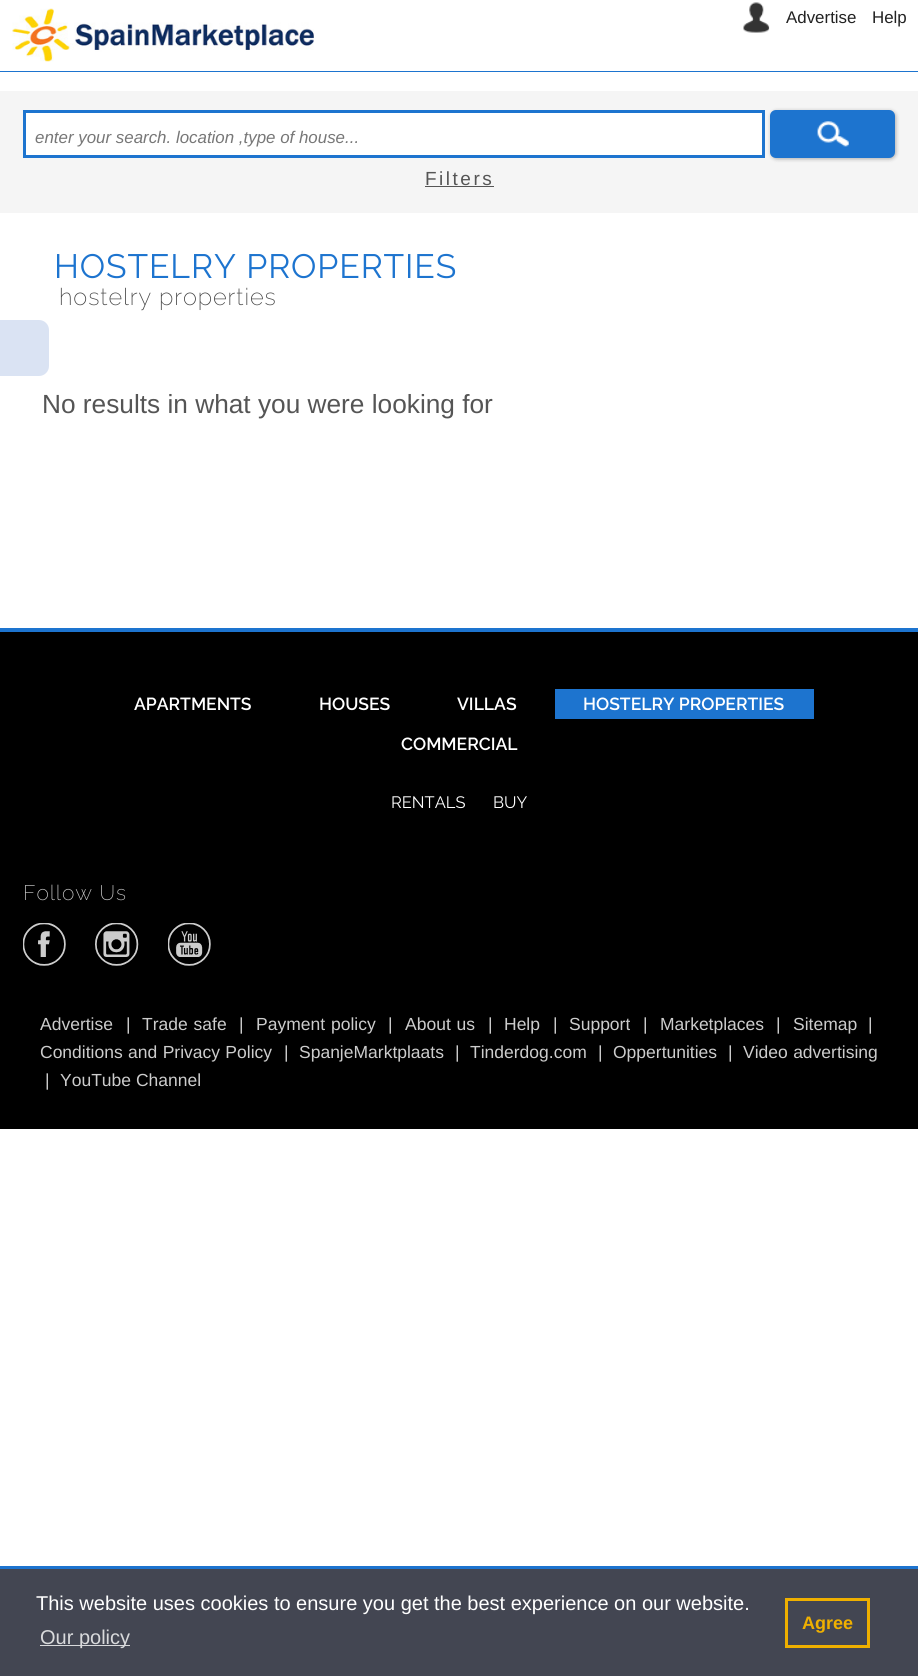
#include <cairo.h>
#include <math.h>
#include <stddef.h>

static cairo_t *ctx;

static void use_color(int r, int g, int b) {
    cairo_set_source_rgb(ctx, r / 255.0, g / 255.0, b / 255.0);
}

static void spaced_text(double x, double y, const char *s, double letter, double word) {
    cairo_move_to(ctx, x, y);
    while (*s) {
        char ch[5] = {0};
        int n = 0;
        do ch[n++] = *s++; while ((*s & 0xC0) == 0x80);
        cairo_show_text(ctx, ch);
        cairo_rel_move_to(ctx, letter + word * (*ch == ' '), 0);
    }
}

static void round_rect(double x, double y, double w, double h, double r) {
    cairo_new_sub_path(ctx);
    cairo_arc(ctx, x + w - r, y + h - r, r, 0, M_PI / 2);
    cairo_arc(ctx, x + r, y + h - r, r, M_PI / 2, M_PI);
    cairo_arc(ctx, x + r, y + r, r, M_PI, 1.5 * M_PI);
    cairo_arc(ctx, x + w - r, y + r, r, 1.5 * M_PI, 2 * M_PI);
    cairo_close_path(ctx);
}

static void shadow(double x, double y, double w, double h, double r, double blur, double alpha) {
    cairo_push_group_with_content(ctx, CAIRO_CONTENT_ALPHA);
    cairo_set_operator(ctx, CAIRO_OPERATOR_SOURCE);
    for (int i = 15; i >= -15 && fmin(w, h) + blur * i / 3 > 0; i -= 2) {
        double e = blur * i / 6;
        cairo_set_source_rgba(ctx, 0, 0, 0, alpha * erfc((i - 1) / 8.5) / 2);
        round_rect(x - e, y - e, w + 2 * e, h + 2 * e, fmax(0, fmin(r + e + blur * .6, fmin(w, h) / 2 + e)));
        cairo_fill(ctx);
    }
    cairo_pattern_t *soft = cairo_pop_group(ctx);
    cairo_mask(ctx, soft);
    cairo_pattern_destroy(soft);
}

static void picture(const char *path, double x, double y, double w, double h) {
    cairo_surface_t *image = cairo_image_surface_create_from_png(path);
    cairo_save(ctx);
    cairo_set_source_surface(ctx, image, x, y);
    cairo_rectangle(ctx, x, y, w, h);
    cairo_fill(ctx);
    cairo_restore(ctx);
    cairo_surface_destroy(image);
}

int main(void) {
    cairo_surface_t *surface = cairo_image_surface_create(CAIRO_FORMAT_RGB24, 918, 1676);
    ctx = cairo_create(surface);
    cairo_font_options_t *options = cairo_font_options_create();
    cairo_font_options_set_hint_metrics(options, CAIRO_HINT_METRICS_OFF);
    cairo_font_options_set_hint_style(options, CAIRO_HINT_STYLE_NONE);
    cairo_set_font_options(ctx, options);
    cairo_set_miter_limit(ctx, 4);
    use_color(255, 255, 255);
    cairo_paint(ctx);
    use_color(29, 116, 207);
    cairo_rectangle(ctx, 0, 71, 918, 1);
    cairo_fill(ctx);
    picture("img1.png", 12, 8, 302, 54);
    picture("img2.png", 743, 2, 27, 31);
    cairo_select_font_face(ctx, "Liberation Sans", CAIRO_FONT_SLANT_NORMAL, CAIRO_FONT_WEIGHT_NORMAL);
    cairo_set_font_size(ctx, 16.9);
    use_color(34, 34, 34);
    cairo_move_to(ctx, 786, 23);
    cairo_show_text(ctx, "Advertise");
    cairo_move_to(ctx, 872, 23);
    cairo_show_text(ctx, "Help");
    use_color(245, 245, 245);
    cairo_rectangle(ctx, 0, 91, 918, 122);
    cairo_fill(ctx);
    use_color(255, 255, 255);
    cairo_rectangle(ctx, 24.5, 111.5, 739, 45);
    cairo_fill_preserve(ctx);
    use_color(29, 116, 207);
    cairo_set_line_width(ctx, 3);
    cairo_stroke(ctx);
    cairo_select_font_face(ctx, "Liberation Sans", CAIRO_FONT_SLANT_ITALIC, CAIRO_FONT_WEIGHT_NORMAL);
    use_color(119, 119, 119);
    cairo_move_to(ctx, 35, 143);
    cairo_show_text(ctx, "enter your search. location ,type of house...");
    use_color(0, 0, 0);
    shadow(771, 111, 125, 48, 6, 2, 0.3);
    use_color(29, 116, 207);
    round_rect(770, 110, 125, 48, 6);
    cairo_fill(ctx);
    picture("img3.png", 817, 121, 32, 26);
    cairo_select_font_face(ctx, "Liberation Sans", CAIRO_FONT_SLANT_NORMAL, CAIRO_FONT_WEIGHT_NORMAL);
    cairo_set_font_size(ctx, 19);
    use_color(85, 85, 85);
    spaced_text(425, 185, "Filters", 2.5, 0);
    cairo_rectangle(ctx, 425, 186, 69, 1);
    cairo_fill(ctx);
    use_color(218, 227, 243);
    cairo_new_path(ctx);
    cairo_move_to(ctx, -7, 320);
    cairo_line_to(ctx, 39, 320);
    cairo_curve_to(ctx, 44.5, 320, 49, 324.5, 49, 330);
    cairo_line_to(ctx, 49, 366);
    cairo_curve_to(ctx, 49, 371.5, 44.5, 376, 39, 376);
    cairo_line_to(ctx, -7, 376);
    cairo_close_path(ctx);
    cairo_fill(ctx);
    cairo_select_font_face(ctx, "Raleway", CAIRO_FONT_SLANT_NORMAL, CAIRO_FONT_WEIGHT_NORMAL);
    cairo_set_font_size(ctx, 33.75);
    use_color(29, 116, 207);
    spaced_text(54, 278, "HOSTELRY PROPERTIES", 0.9, 0);
    cairo_select_font_face(ctx, "Raleway ExtraLight", CAIRO_FONT_SLANT_NORMAL, CAIRO_FONT_WEIGHT_NORMAL);
    cairo_set_font_size(ctx, 23.6);
    use_color(68, 68, 68);
    spaced_text(59, 305, "hostelry properties", 0.9, 0);
    cairo_select_font_face(ctx, "Liberation Sans", CAIRO_FONT_SLANT_NORMAL, CAIRO_FONT_WEIGHT_NORMAL);
    cairo_set_font_size(ctx, 26.25);
    use_color(85, 85, 85);
    cairo_move_to(ctx, 42, 413);
    cairo_show_text(ctx, "No results in what you were looking for");
    use_color(0, 0, 0);
    cairo_rectangle(ctx, 0, 632, 918, 497);
    cairo_fill(ctx);
    use_color(29, 116, 207);
    cairo_rectangle(ctx, 0, 628, 918, 4);
    cairo_fill(ctx);
    cairo_select_font_face(ctx, "Raleway SemiBold", CAIRO_FONT_SLANT_NORMAL, CAIRO_FONT_WEIGHT_NORMAL);
    cairo_set_font_size(ctx, 17.5);
    use_color(255, 255, 255);
    cairo_move_to(ctx, 134, 710);
    cairo_show_text(ctx, "APARTMENTS");
    cairo_move_to(ctx, 319, 710);
    cairo_show_text(ctx, "HOUSES");
    cairo_move_to(ctx, 457, 710);
    cairo_show_text(ctx, "VILLAS");
    use_color(29, 116, 207);
    cairo_rectangle(ctx, 555, 689, 259, 30);
    cairo_fill(ctx);
    use_color(255, 255, 255);
    cairo_move_to(ctx, 583, 710);
    cairo_show_text(ctx, "HOSTELRY PROPERTIES");
    cairo_move_to(ctx, 401, 750);
    cairo_show_text(ctx, "COMMERCIAL");
    cairo_select_font_face(ctx, "Raleway", CAIRO_FONT_SLANT_NORMAL, CAIRO_FONT_WEIGHT_NORMAL);
    cairo_set_font_size(ctx, 16.5);
    cairo_move_to(ctx, 391, 808);
    cairo_show_text(ctx, "RENTALS");
    cairo_move_to(ctx, 493, 808);
    cairo_show_text(ctx, "BUY");
    cairo_select_font_face(ctx, "Raleway ExtraLight", CAIRO_FONT_SLANT_NORMAL, CAIRO_FONT_WEIGHT_NORMAL);
    cairo_set_font_size(ctx, 21);
    use_color(204, 204, 204);
    spaced_text(23, 900, "Follow Us", 0.9, 0);
    picture("img4.png", 23, 923, 43, 43);
    picture("img5.png", 95, 923, 44, 43);
    picture("img6.png", 168, 923, 43, 43);
    cairo_select_font_face(ctx, "Liberation Sans", CAIRO_FONT_SLANT_NORMAL, CAIRO_FONT_WEIGHT_NORMAL);
    cairo_set_font_size(ctx, 17.5);
    cairo_move_to(ctx, 40, 1030);
    cairo_show_text(ctx, "Advertise");
    cairo_move_to(ctx, 126, 1030);
    cairo_show_text(ctx, "|");
    spaced_text(142, 1030, "Trade safe", 0, 1);
    cairo_move_to(ctx, 239, 1030);
    cairo_show_text(ctx, "|");
    spaced_text(256, 1030, "Payment policy", 0, 1);
    cairo_move_to(ctx, 388, 1030);
    cairo_show_text(ctx, "|");
    spaced_text(405, 1030, "About us", 0, 1);
    cairo_move_to(ctx, 488, 1030);
    cairo_show_text(ctx, "|");
    cairo_move_to(ctx, 504, 1030);
    cairo_show_text(ctx, "Help");
    cairo_move_to(ctx, 553, 1030);
    cairo_show_text(ctx, "|");
    cairo_move_to(ctx, 569, 1030);
    cairo_show_text(ctx, "Support");
    cairo_move_to(ctx, 643, 1030);
    cairo_show_text(ctx, "|");
    cairo_move_to(ctx, 660, 1030);
    cairo_show_text(ctx, "Marketplaces");
    cairo_move_to(ctx, 776, 1030);
    cairo_show_text(ctx, "|");
    cairo_move_to(ctx, 793, 1030);
    cairo_show_text(ctx, "Sitemap");
    cairo_move_to(ctx, 868, 1030);
    cairo_show_text(ctx, "|");
    spaced_text(40, 1058, "Conditions and Privacy Policy", 0, 0.5);
    cairo_move_to(ctx, 284, 1058);
    cairo_show_text(ctx, "|");
    cairo_move_to(ctx, 299, 1058);
    cairo_show_text(ctx, "SpanjeMarktplaats");
    cairo_move_to(ctx, 455, 1058);
    cairo_show_text(ctx, "|");
    cairo_move_to(ctx, 470, 1058);
    cairo_show_text(ctx, "Tinderdog.com");
    cairo_move_to(ctx, 598, 1058);
    cairo_show_text(ctx, "|");
    cairo_move_to(ctx, 613, 1058);
    cairo_show_text(ctx, "Oppertunities");
    cairo_move_to(ctx, 728, 1058);
    cairo_show_text(ctx, "|");
    spaced_text(743, 1058, "Video advertising", 0, 0.5);
    cairo_move_to(ctx, 45, 1086);
    cairo_show_text(ctx, "|");
    cairo_move_to(ctx, 60, 1086);
    cairo_show_text(ctx, "YouTube Channel");
    use_color(67, 70, 82);
    cairo_rectangle(ctx, 0, 1569, 918, 107);
    cairo_fill(ctx);
    use_color(29, 116, 207);
    cairo_rectangle(ctx, 0, 1566, 918, 3);
    cairo_fill(ctx);
    cairo_set_font_size(ctx, 20);
    use_color(255, 255, 255);
    cairo_move_to(ctx, 36, 1610);
    cairo_show_text(ctx, "This website uses cookies to ensure you get the best experience on our website.");
    use_color(217, 218, 220);
    cairo_rectangle(ctx, 40, 1645, 90, 1);
    cairo_fill(ctx);
    cairo_move_to(ctx, 40, 1644);
    cairo_show_text(ctx, "Our policy");
    cairo_rectangle(ctx, 786.5, 1599.5, 82, 47);
    use_color(239, 176, 0);
    cairo_stroke(ctx);
    cairo_select_font_face(ctx, "Liberation Sans", CAIRO_FONT_SLANT_NORMAL, CAIRO_FONT_WEIGHT_BOLD);
    cairo_set_font_size(ctx, 18);
    cairo_move_to(ctx, 802, 1629);
    cairo_show_text(ctx, "Agree");
    cairo_surface_write_to_png(surface, "result.png");
    cairo_font_options_destroy(options);
    cairo_destroy(ctx);
    cairo_surface_destroy(surface);
    return 0;
}
